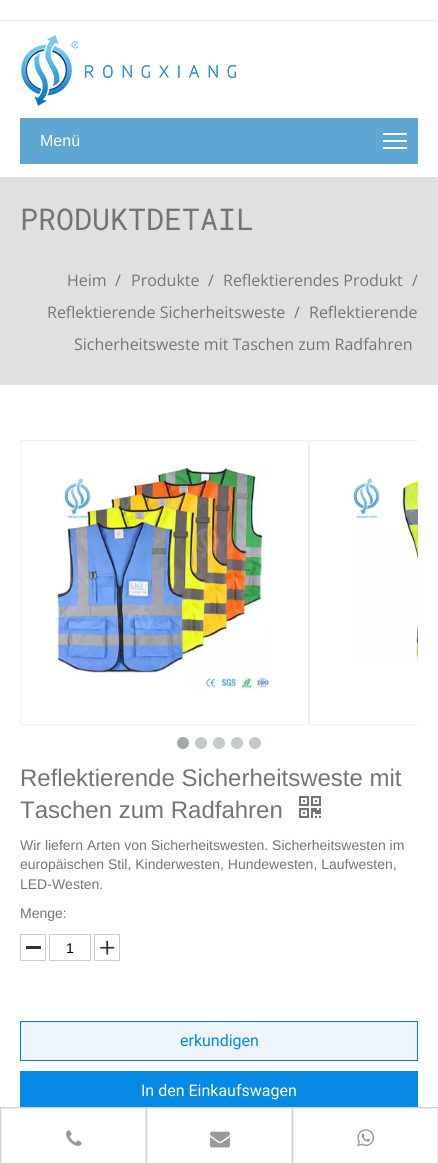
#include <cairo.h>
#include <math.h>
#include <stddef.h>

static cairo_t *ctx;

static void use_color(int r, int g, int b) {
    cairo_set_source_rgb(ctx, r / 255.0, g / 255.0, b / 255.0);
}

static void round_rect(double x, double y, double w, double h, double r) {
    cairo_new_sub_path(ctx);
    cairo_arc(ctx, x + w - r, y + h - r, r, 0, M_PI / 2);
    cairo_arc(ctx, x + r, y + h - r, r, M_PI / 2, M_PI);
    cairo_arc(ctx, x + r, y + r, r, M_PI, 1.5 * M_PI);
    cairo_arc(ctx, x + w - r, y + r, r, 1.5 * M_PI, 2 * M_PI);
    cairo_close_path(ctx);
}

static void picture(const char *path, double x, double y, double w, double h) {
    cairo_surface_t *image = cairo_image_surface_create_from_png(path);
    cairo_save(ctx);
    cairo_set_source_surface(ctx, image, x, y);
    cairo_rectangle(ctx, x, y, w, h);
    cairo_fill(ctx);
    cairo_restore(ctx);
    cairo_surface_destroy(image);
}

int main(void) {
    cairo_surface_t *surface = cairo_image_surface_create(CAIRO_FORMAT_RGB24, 438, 1163);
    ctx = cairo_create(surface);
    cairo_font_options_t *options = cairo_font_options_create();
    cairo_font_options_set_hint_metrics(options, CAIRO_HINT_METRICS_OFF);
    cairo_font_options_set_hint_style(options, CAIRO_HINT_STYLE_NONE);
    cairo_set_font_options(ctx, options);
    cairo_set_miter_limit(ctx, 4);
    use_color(255, 255, 255);
    cairo_paint(ctx);
    use_color(232, 232, 232);
    cairo_rectangle(ctx, 0, 20, 438, 1);
    cairo_fill(ctx);
    use_color(221, 221, 221);
    cairo_rectangle(ctx, 0, 177, 438, 1);
    cairo_fill(ctx);
    picture("img1.png", 21, 35, 215, 71);
    use_color(94, 167, 211);
    cairo_rectangle(ctx, 20, 118, 398, 46);
    cairo_fill(ctx);
    cairo_select_font_face(ctx, "Liberation Sans", CAIRO_FONT_SLANT_NORMAL, CAIRO_FONT_WEIGHT_NORMAL);
    cairo_set_font_size(ctx, 16);
    use_color(255, 255, 255);
    cairo_move_to(ctx, 40, 146);
    cairo_show_text(ctx, "Menü");
    cairo_rectangle(ctx, 383, 133, 24, 2);
    cairo_fill(ctx);
    cairo_rectangle(ctx, 383, 140, 24, 2);
    cairo_fill(ctx);
    cairo_rectangle(ctx, 383, 147, 24, 2);
    cairo_fill(ctx);
    use_color(224, 224, 224);
    cairo_rectangle(ctx, 0, 178, 438, 207);
    cairo_fill(ctx);
    cairo_select_font_face(ctx, "Roboto Mono", CAIRO_FONT_SLANT_NORMAL, CAIRO_FONT_WEIGHT_NORMAL);
    cairo_set_font_size(ctx, 30);
    use_color(116, 116, 116);
    cairo_move_to(ctx, 20, 230);
    cairo_show_text(ctx, "PRODUKTDETAIL");
    cairo_select_font_face(ctx, "Open Sans", CAIRO_FONT_SLANT_NORMAL, CAIRO_FONT_WEIGHT_NORMAL);
    cairo_set_font_size(ctx, 16);
    cairo_move_to(ctx, 67, 286);
    cairo_show_text(ctx, "Heim");
    cairo_move_to(ctx, 115, 286);
    cairo_show_text(ctx, "/");
    cairo_move_to(ctx, 131, 286);
    cairo_show_text(ctx, "Produkte");
    cairo_move_to(ctx, 208, 286);
    cairo_show_text(ctx, "/");
    cairo_move_to(ctx, 223, 286);
    cairo_show_text(ctx, "Reflektierendes Produkt");
    cairo_move_to(ctx, 412, 286);
    cairo_show_text(ctx, "/");
    cairo_move_to(ctx, 47, 318);
    cairo_show_text(ctx, "Reflektierende Sicherheitsweste");
    cairo_move_to(ctx, 294, 318);
    cairo_show_text(ctx, "/");
    cairo_move_to(ctx, 309, 318);
    cairo_show_text(ctx, "Reflektierende");
    cairo_move_to(ctx, 74, 350);
    cairo_show_text(ctx, "Sicherheitsweste mit Taschen zum Radfahren");
    round_rect(20.5, 440.5, 288, 284, 1.5);
    use_color(239, 239, 239);
    cairo_set_line_width(ctx, 1);
    cairo_stroke(ctx);
    picture("img2.png", 53, 464, 217, 226);
    cairo_save(ctx);
    cairo_rectangle(ctx, 309, 440, 109, 292);
    cairo_clip(ctx);
    round_rect(309.5, 440.5, 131, 284, 1.5);
    cairo_stroke(ctx);
    cairo_restore(ctx);
    picture("img3.png", 353, 477, 65, 184);
    use_color(158, 172, 167);
    cairo_arc(ctx, 183, 743, 6, 0, 2 * M_PI);
    cairo_fill(ctx);
    use_color(195, 203, 200);
    cairo_arc(ctx, 201, 743, 6, 0, 2 * M_PI);
    cairo_fill(ctx);
    cairo_arc(ctx, 219, 743, 6, 0, 2 * M_PI);
    cairo_fill(ctx);
    cairo_arc(ctx, 237, 743, 6, 0, 2 * M_PI);
    cairo_fill(ctx);
    cairo_arc(ctx, 255, 743, 6, 0, 2 * M_PI);
    cairo_fill(ctx);
    cairo_select_font_face(ctx, "Liberation Sans", CAIRO_FONT_SLANT_NORMAL, CAIRO_FONT_WEIGHT_NORMAL);
    cairo_set_font_size(ctx, 24);
    use_color(116, 116, 116);
    cairo_move_to(ctx, 20, 786);
    cairo_show_text(ctx, "Reflektierende Sicherheitsweste mit");
    cairo_move_to(ctx, 20, 818);
    cairo_show_text(ctx, "Taschen zum Radfahren");
    picture("img4.png", 299, 796, 22, 22);
    cairo_set_font_size(ctx, 14);
    cairo_move_to(ctx, 20, 850);
    cairo_show_text(ctx, "Wir liefern Arten von Sicherheitswesten. Sicherheitswesten im");
    cairo_move_to(ctx, 20, 869);
    cairo_show_text(ctx, "europäischen Stil, Kinderwesten, Hundewesten, Laufwesten,");
    cairo_move_to(ctx, 20, 889);
    cairo_show_text(ctx, "LED-Westen.");
    cairo_move_to(ctx, 20, 918);
    cairo_show_text(ctx, "Menge:");
    use_color(51, 51, 51);
    cairo_rectangle(ctx, 26, 946, 15, 3);
    cairo_fill(ctx);
    round_rect(20.5, 934.5, 25, 26, 0.5);
    use_color(204, 204, 204);
    cairo_stroke(ctx);
    cairo_rectangle(ctx, 49.5, 934.5, 41, 26);
    cairo_stroke(ctx);
    use_color(0, 0, 0);
    cairo_move_to(ctx, 66, 953);
    cairo_show_text(ctx, "1");
    picture("img5.png", 100, 940, 15, 15);
    round_rect(94.5, 934.5, 25, 26, 0.5);
    use_color(204, 204, 204);
    cairo_stroke(ctx);
    use_color(238, 244, 251);
    cairo_rectangle(ctx, 20.5, 1021.5, 397, 39);
    cairo_fill_preserve(ctx);
    use_color(9, 122, 200);
    cairo_stroke(ctx);
    cairo_select_font_face(ctx, "Roboto", CAIRO_FONT_SLANT_NORMAL, CAIRO_FONT_WEIGHT_NORMAL);
    cairo_set_font_size(ctx, 16);
    use_color(5, 137, 227);
    cairo_move_to(ctx, 180, 1046);
    cairo_show_text(ctx, "erkundigen");
    cairo_rectangle(ctx, 20, 1071, 398, 36);
    cairo_fill(ctx);
    use_color(255, 255, 255);
    cairo_move_to(ctx, 141, 1096);
    cairo_show_text(ctx, "In den Einkaufswagen");
    use_color(211, 211, 211);
    cairo_rectangle(ctx, 0, 1107, 438, 1);
    cairo_fill(ctx);
    cairo_rectangle(ctx, 0, 1108, 1, 55);
    cairo_fill(ctx);
    use_color(238, 238, 238);
    cairo_rectangle(ctx, 1, 1108, 145, 1);
    cairo_fill(ctx);
    cairo_rectangle(ctx, 145, 1108, 1, 55);
    cairo_fill(ctx);
    cairo_rectangle(ctx, 1, 1108, 1, 55);
    cairo_fill(ctx);
    picture("img6.png", 66, 1130, 16, 16);
    use_color(211, 211, 211);
    cairo_rectangle(ctx, 146, 1108, 1, 55);
    cairo_fill(ctx);
    use_color(238, 238, 238);
    cairo_rectangle(ctx, 147, 1108, 145, 1);
    cairo_fill(ctx);
    cairo_rectangle(ctx, 291, 1108, 1, 55);
    cairo_fill(ctx);
    cairo_rectangle(ctx, 147, 1108, 1, 55);
    cairo_fill(ctx);
    picture("img7.png", 210, 1131, 20, 17);
    use_color(211, 211, 211);
    cairo_rectangle(ctx, 292, 1108, 1, 55);
    cairo_fill(ctx);
    cairo_rectangle(ctx, 293.5, 1108.5, 144, 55);
    use_color(238, 238, 238);
    cairo_stroke(ctx);
    picture("img8.png", 357, 1129, 18, 18);
    cairo_surface_write_to_png(surface, "result.png");
    cairo_font_options_destroy(options);
    cairo_destroy(ctx);
    cairo_surface_destroy(surface);
    return 0;
}
